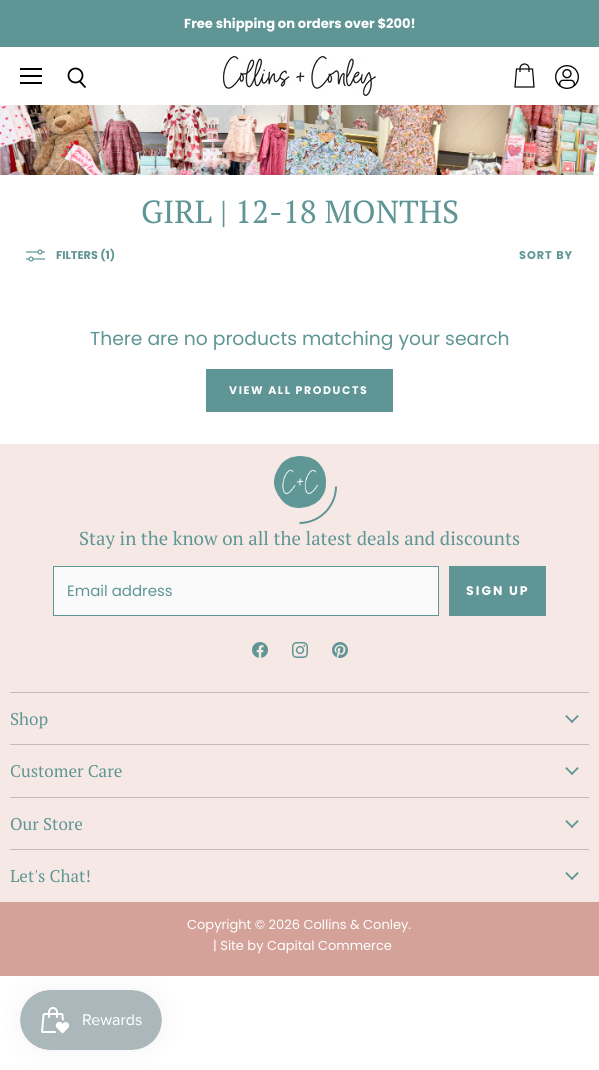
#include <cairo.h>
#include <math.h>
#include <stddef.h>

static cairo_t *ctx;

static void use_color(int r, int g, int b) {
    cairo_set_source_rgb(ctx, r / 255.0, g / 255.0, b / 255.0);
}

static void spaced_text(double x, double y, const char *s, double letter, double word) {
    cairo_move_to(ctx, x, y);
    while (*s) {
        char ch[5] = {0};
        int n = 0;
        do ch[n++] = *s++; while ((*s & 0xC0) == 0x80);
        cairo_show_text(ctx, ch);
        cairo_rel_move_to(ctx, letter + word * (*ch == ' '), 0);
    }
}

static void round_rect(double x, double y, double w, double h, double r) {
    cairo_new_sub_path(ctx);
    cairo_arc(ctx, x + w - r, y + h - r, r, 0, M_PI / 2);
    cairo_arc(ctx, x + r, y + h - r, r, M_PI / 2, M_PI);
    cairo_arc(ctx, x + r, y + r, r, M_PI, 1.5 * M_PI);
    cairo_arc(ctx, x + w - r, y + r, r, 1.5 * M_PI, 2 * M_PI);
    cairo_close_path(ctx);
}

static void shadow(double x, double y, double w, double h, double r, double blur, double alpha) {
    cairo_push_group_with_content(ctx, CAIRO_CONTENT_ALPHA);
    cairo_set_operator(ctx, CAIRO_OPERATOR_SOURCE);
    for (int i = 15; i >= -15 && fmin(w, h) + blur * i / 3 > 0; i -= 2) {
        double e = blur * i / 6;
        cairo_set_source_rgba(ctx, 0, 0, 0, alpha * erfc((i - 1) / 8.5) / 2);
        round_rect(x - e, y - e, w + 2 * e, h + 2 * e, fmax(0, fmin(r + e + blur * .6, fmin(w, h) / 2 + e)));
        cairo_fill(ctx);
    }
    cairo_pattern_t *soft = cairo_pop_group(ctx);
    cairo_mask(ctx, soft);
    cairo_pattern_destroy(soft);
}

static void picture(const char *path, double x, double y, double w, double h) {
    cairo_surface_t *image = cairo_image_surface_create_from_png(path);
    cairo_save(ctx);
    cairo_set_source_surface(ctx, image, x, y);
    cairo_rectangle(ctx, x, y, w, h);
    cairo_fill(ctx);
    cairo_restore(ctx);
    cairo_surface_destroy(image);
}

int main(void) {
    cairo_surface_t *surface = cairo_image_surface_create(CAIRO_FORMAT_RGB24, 599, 1070);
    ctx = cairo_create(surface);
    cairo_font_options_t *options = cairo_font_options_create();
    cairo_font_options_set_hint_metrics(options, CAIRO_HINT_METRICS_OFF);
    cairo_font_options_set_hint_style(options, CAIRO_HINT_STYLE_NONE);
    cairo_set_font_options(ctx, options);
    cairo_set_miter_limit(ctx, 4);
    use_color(255, 255, 255);
    cairo_paint(ctx);
    use_color(95, 149, 149);
    cairo_rectangle(ctx, 0, 0, 599, 47);
    cairo_fill(ctx);
    cairo_select_font_face(ctx, "Poppins", CAIRO_FONT_SLANT_NORMAL, CAIRO_FONT_WEIGHT_BOLD);
    cairo_set_font_size(ctx, 13.1);
    use_color(255, 255, 255);
    cairo_move_to(ctx, 184, 28);
    cairo_show_text(ctx, "Free shipping on orders over $200!");
    use_color(0, 0, 0);
    cairo_rectangle(ctx, 20, 68, 22, 2);
    cairo_fill(ctx);
    cairo_rectangle(ctx, 20, 75, 22, 2);
    cairo_fill(ctx);
    cairo_rectangle(ctx, 20, 82, 22, 2);
    cairo_fill(ctx);
    cairo_new_path(ctx);
    cairo_move_to(ctx, 85.5, 87.5);
    cairo_line_to(ctx, 79.5, 81);
    cairo_set_line_width(ctx, 1.8);
    cairo_stroke(ctx);
    cairo_arc(ctx, 75.5, 75.5, 7, 0, 2 * M_PI);
    cairo_stroke(ctx);
    picture("img1.png", 223, 56, 153, 40);
    picture("img2.png", 514, 63, 21, 25);
    picture("img3.png", 555, 65, 24, 24);
    picture("img4.png", 0, 105, 599, 70);
    cairo_select_font_face(ctx, "PT Serif", CAIRO_FONT_SLANT_NORMAL, CAIRO_FONT_WEIGHT_NORMAL);
    cairo_set_font_size(ctx, 31.9);
    use_color(95, 149, 149);
    cairo_move_to(ctx, 141, 223);
    cairo_show_text(ctx, "GIRL | 12-18 MONTHS");
    picture("img5.png", 26, 249, 19, 13);
    cairo_select_font_face(ctx, "Poppins", CAIRO_FONT_SLANT_NORMAL, CAIRO_FONT_WEIGHT_BOLD);
    cairo_set_font_size(ctx, 11.25);
    cairo_move_to(ctx, 56, 259);
    cairo_show_text(ctx, "FILTERS (1)");
    spaced_text(519, 259, "SORT BY", 1, 0);
    cairo_select_font_face(ctx, "Poppins", CAIRO_FONT_SLANT_NORMAL, CAIRO_FONT_WEIGHT_NORMAL);
    cairo_set_font_size(ctx, 18.75);
    cairo_move_to(ctx, 90, 345);
    cairo_show_text(ctx, "There are no products matching your search");
    cairo_rectangle(ctx, 206, 369, 187, 43);
    cairo_fill(ctx);
    cairo_select_font_face(ctx, "Poppins", CAIRO_FONT_SLANT_NORMAL, CAIRO_FONT_WEIGHT_BOLD);
    cairo_set_font_size(ctx, 11);
    use_color(255, 255, 255);
    spaced_text(229, 394, "VIEW ALL PRODUCTS", 1.6, 0);
    use_color(246, 233, 229);
    cairo_rectangle(ctx, 0, 444, 599, 458);
    cairo_fill(ctx);
    picture("img6.png", 274, 456, 52, 52);
    cairo_new_path(ctx);
    cairo_move_to(ctx, 336, 486.5);
    cairo_curve_to(ctx, 336, 506.5, 319.5, 523, 299.5, 523);
    use_color(95, 149, 149);
    cairo_set_line_width(ctx, 2);
    cairo_stroke(ctx);
    use_color(197, 186, 183);
    cairo_rectangle(ctx, 10, 692, 579, 1);
    cairo_fill(ctx);
    cairo_select_font_face(ctx, "PT Serif", CAIRO_FONT_SLANT_NORMAL, CAIRO_FONT_WEIGHT_NORMAL);
    cairo_set_font_size(ctx, 18.75);
    use_color(95, 149, 149);
    cairo_move_to(ctx, 79, 545);
    cairo_show_text(ctx, "Stay in the know on all the latest deals and discounts");
    use_color(250, 250, 250);
    cairo_rectangle(ctx, 53.5, 566.5, 385, 49);
    cairo_fill_preserve(ctx);
    use_color(95, 149, 149);
    cairo_set_line_width(ctx, 1);
    cairo_stroke(ctx);
    cairo_select_font_face(ctx, "Poppins", CAIRO_FONT_SLANT_NORMAL, CAIRO_FONT_WEIGHT_NORMAL);
    cairo_set_font_size(ctx, 15);
    cairo_move_to(ctx, 67, 596);
    cairo_show_text(ctx, "Email address");
    cairo_rectangle(ctx, 449, 566, 97, 50);
    cairo_fill(ctx);
    cairo_select_font_face(ctx, "Poppins", CAIRO_FONT_SLANT_NORMAL, CAIRO_FONT_WEIGHT_BOLD);
    cairo_set_font_size(ctx, 12.5);
    use_color(255, 255, 255);
    spaced_text(466, 595, "SIGN UP", 2, 0);
    picture("img7.png", 252, 642, 16, 16);
    picture("img8.png", 292, 642, 16, 16);
    picture("img9.png", 332, 642, 16, 16);
    use_color(197, 186, 183);
    cairo_rectangle(ctx, 10, 744, 579, 1);
    cairo_fill(ctx);
    cairo_select_font_face(ctx, "PT Serif", CAIRO_FONT_SLANT_NORMAL, CAIRO_FONT_WEIGHT_NORMAL);
    cairo_set_font_size(ctx, 17);
    use_color(95, 149, 149);
    cairo_move_to(ctx, 10, 725);
    cairo_show_text(ctx, "Shop");
    picture("img10.png", 565, 715, 14, 8);
    use_color(197, 186, 183);
    cairo_rectangle(ctx, 10, 797, 579, 1);
    cairo_fill(ctx);
    use_color(95, 149, 149);
    cairo_move_to(ctx, 10, 777);
    cairo_show_text(ctx, "Customer Care");
    picture("img10.png", 565, 767, 14, 8);
    use_color(197, 186, 183);
    cairo_rectangle(ctx, 10, 849, 579, 1);
    cairo_fill(ctx);
    use_color(95, 149, 149);
    cairo_move_to(ctx, 10, 830);
    cairo_show_text(ctx, "Our Store");
    picture("img10.png", 565, 820, 14, 8);
    cairo_move_to(ctx, 10, 882);
    cairo_show_text(ctx, "Let's Chat!");
    picture("img10.png", 565, 872, 14, 8);
    use_color(212, 162, 153);
    cairo_rectangle(ctx, 0, 902, 599, 74);
    cairo_fill(ctx);
    cairo_select_font_face(ctx, "Poppins", CAIRO_FONT_SLANT_NORMAL, CAIRO_FONT_WEIGHT_NORMAL);
    cairo_set_font_size(ctx, 13);
    use_color(255, 255, 255);
    cairo_move_to(ctx, 187, 929);
    cairo_show_text(ctx, "Copyright © 2026 Collins & Conley.");
    cairo_move_to(ctx, 213, 950);
    cairo_show_text(ctx, "| Site by Capital Commerce");
    use_color(0, 0, 0);
    shadow(20, 990, 142, 60, 30, 12.5, 0.05);
    picture("img11.png", 20, 990, 142, 60);
    cairo_surface_write_to_png(surface, "result.png");
    cairo_font_options_destroy(options);
    cairo_destroy(ctx);
    cairo_surface_destroy(surface);
    return 0;
}
